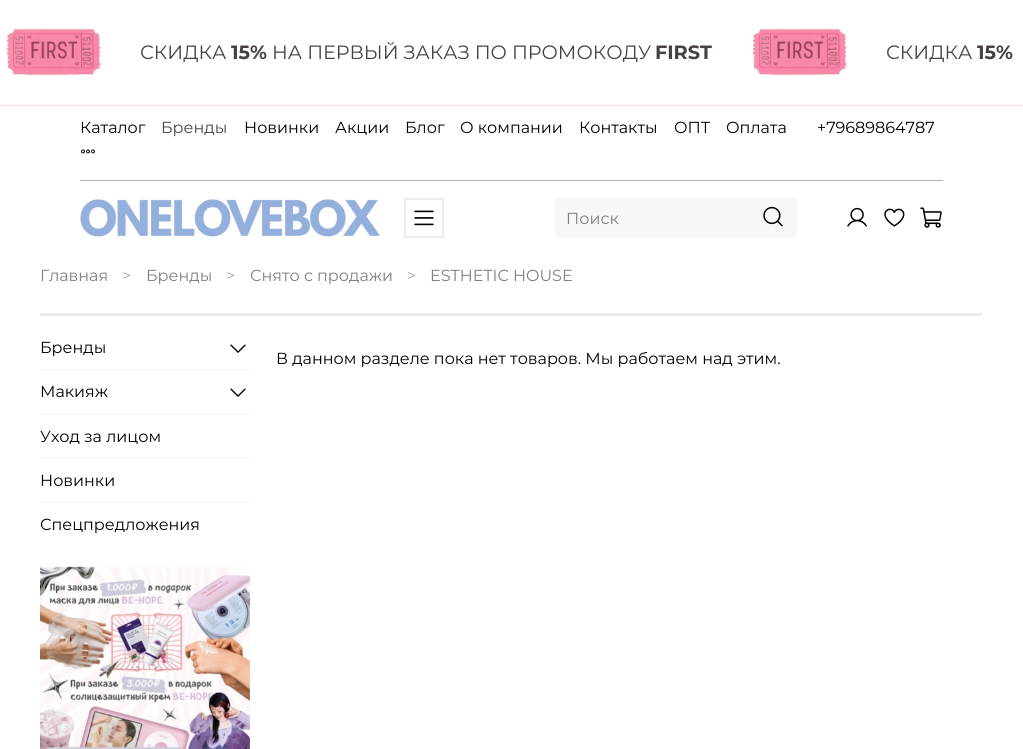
#include <cairo.h>
#include <math.h>
#include <stddef.h>

static cairo_t *ctx;

static void use_color(int r, int g, int b) {
    cairo_set_source_rgb(ctx, r / 255.0, g / 255.0, b / 255.0);
}

static void picture(const char *path, double x, double y, double w, double h) {
    cairo_surface_t *image = cairo_image_surface_create_from_png(path);
    cairo_save(ctx);
    cairo_set_source_surface(ctx, image, x, y);
    cairo_rectangle(ctx, x, y, w, h);
    cairo_fill(ctx);
    cairo_restore(ctx);
    cairo_surface_destroy(image);
}

int main(void) {
    cairo_surface_t *surface = cairo_image_surface_create(CAIRO_FORMAT_RGB24, 1023, 749);
    ctx = cairo_create(surface);
    cairo_font_options_t *options = cairo_font_options_create();
    cairo_font_options_set_hint_metrics(options, CAIRO_HINT_METRICS_OFF);
    cairo_font_options_set_hint_style(options, CAIRO_HINT_STYLE_NONE);
    cairo_set_font_options(ctx, options);
    cairo_set_miter_limit(ctx, 4);
    use_color(255, 255, 255);
    cairo_paint(ctx);
    picture("img1.png", 6, 28, 96, 48);
    cairo_select_font_face(ctx, "Montserrat", CAIRO_FONT_SLANT_NORMAL, CAIRO_FONT_WEIGHT_NORMAL);
    cairo_set_font_size(ctx, 19.25);
    use_color(71, 64, 70);
    cairo_move_to(ctx, 140, 59);
    cairo_show_text(ctx, "СКИДКА");
    cairo_select_font_face(ctx, "Montserrat", CAIRO_FONT_SLANT_NORMAL, CAIRO_FONT_WEIGHT_BOLD);
    cairo_move_to(ctx, 231, 59);
    cairo_show_text(ctx, "15%");
    cairo_select_font_face(ctx, "Montserrat", CAIRO_FONT_SLANT_NORMAL, CAIRO_FONT_WEIGHT_NORMAL);
    cairo_move_to(ctx, 272, 59);
    cairo_show_text(ctx, "НА ПЕРВЫЙ ЗАКАЗ ПО ПРОМОКОДУ");
    cairo_select_font_face(ctx, "Montserrat", CAIRO_FONT_SLANT_NORMAL, CAIRO_FONT_WEIGHT_BOLD);
    cairo_move_to(ctx, 655, 59);
    cairo_show_text(ctx, "FIRST");
    picture("img1.png", 752, 28, 96, 48);
    cairo_select_font_face(ctx, "Montserrat", CAIRO_FONT_SLANT_NORMAL, CAIRO_FONT_WEIGHT_NORMAL);
    cairo_move_to(ctx, 886, 59);
    cairo_show_text(ctx, "СКИДКА");
    cairo_select_font_face(ctx, "Montserrat", CAIRO_FONT_SLANT_NORMAL, CAIRO_FONT_WEIGHT_BOLD);
    cairo_move_to(ctx, 977, 59);
    cairo_show_text(ctx, "15%");
    use_color(255, 218, 229);
    cairo_rectangle(ctx, 0, 105, 1023, 1);
    cairo_fill(ctx);
    cairo_select_font_face(ctx, "Montserrat", CAIRO_FONT_SLANT_NORMAL, CAIRO_FONT_WEIGHT_NORMAL);
    cairo_set_font_size(ctx, 16);
    use_color(0, 0, 0);
    cairo_move_to(ctx, 80, 133);
    cairo_show_text(ctx, "Каталог");
    use_color(71, 71, 71);
    cairo_move_to(ctx, 161, 133);
    cairo_show_text(ctx, "Бренды");
    use_color(0, 0, 0);
    cairo_move_to(ctx, 244, 133);
    cairo_show_text(ctx, "Новинки");
    cairo_move_to(ctx, 335, 133);
    cairo_show_text(ctx, "Акции");
    cairo_move_to(ctx, 405, 133);
    cairo_show_text(ctx, "Блог");
    cairo_move_to(ctx, 460, 133);
    cairo_show_text(ctx, "О компании");
    cairo_move_to(ctx, 579, 133);
    cairo_show_text(ctx, "Контакты");
    cairo_move_to(ctx, 674, 133);
    cairo_show_text(ctx, "ОПТ");
    cairo_move_to(ctx, 726, 133);
    cairo_show_text(ctx, "Оплата");
    picture("img2.png", 81, 149, 14, 5);
    cairo_move_to(ctx, 817, 133);
    cairo_show_text(ctx, "+79689864787");
    use_color(179, 179, 179);
    cairo_rectangle(ctx, 80, 180, 863, 1);
    cairo_fill(ctx);
    picture("img3.png", 80, 199, 300, 38);
    cairo_rectangle(ctx, 405, 199, 38, 38);
    use_color(237, 237, 237);
    cairo_stroke(ctx);
    picture("img4.png", 414, 210, 20, 16);
    use_color(247, 247, 247);
    cairo_rectangle(ctx, 555, 198, 242, 40);
    cairo_fill(ctx);
    use_color(128, 128, 128);
    cairo_move_to(ctx, 566, 224);
    cairo_show_text(ctx, "Поиск");
    picture("img5.png", 763, 206, 20, 21);
    picture("img6.png", 847, 207, 20, 20);
    picture("img7.png", 884, 208, 21, 19);
    picture("img8.png", 920, 207, 22, 21);
    cairo_move_to(ctx, 40, 281);
    cairo_show_text(ctx, "Главная");
    use_color(166, 166, 166);
    cairo_move_to(ctx, 122, 281);
    cairo_show_text(ctx, ">");
    use_color(128, 128, 128);
    cairo_move_to(ctx, 146, 281);
    cairo_show_text(ctx, "Бренды");
    use_color(166, 166, 166);
    cairo_move_to(ctx, 226, 281);
    cairo_show_text(ctx, ">");
    use_color(128, 128, 128);
    cairo_move_to(ctx, 250, 281);
    cairo_show_text(ctx, "Снято с продажи");
    use_color(166, 166, 166);
    cairo_move_to(ctx, 407, 281);
    cairo_show_text(ctx, ">");
    use_color(128, 128, 128);
    cairo_move_to(ctx, 430, 281);
    cairo_show_text(ctx, "ESTHETIC HOUSE");
    use_color(237, 237, 237);
    cairo_rectangle(ctx, 40, 313, 943, 3);
    cairo_fill(ctx);
    use_color(247, 247, 247);
    cairo_rectangle(ctx, 40, 370, 210, 1);
    cairo_fill(ctx);
    use_color(0, 0, 0);
    cairo_move_to(ctx, 40, 353);
    cairo_show_text(ctx, "Бренды");
    picture("img9.png", 230, 344, 16, 9);
    use_color(247, 247, 247);
    cairo_rectangle(ctx, 40, 414, 210, 1);
    cairo_fill(ctx);
    use_color(0, 0, 0);
    cairo_move_to(ctx, 40, 397);
    cairo_show_text(ctx, "Макияж");
    picture("img9.png", 230, 388, 16, 9);
    use_color(247, 247, 247);
    cairo_rectangle(ctx, 40, 458, 210, 1);
    cairo_fill(ctx);
    use_color(0, 0, 0);
    cairo_move_to(ctx, 40, 442);
    cairo_show_text(ctx, "Уход за лицом");
    use_color(247, 247, 247);
    cairo_rectangle(ctx, 40, 502, 210, 1);
    cairo_fill(ctx);
    use_color(0, 0, 0);
    cairo_move_to(ctx, 40, 486);
    cairo_show_text(ctx, "Новинки");
    cairo_move_to(ctx, 40, 530);
    cairo_show_text(ctx, "Спецпредложения");
    picture("img10.png", 40, 566, 210, 183);
    cairo_move_to(ctx, 276, 364);
    cairo_show_text(ctx, "В данном разделе пока нет товаров. Мы работаем над этим.");
    cairo_surface_write_to_png(surface, "result.png");
    cairo_font_options_destroy(options);
    cairo_destroy(ctx);
    cairo_surface_destroy(surface);
    return 0;
}
